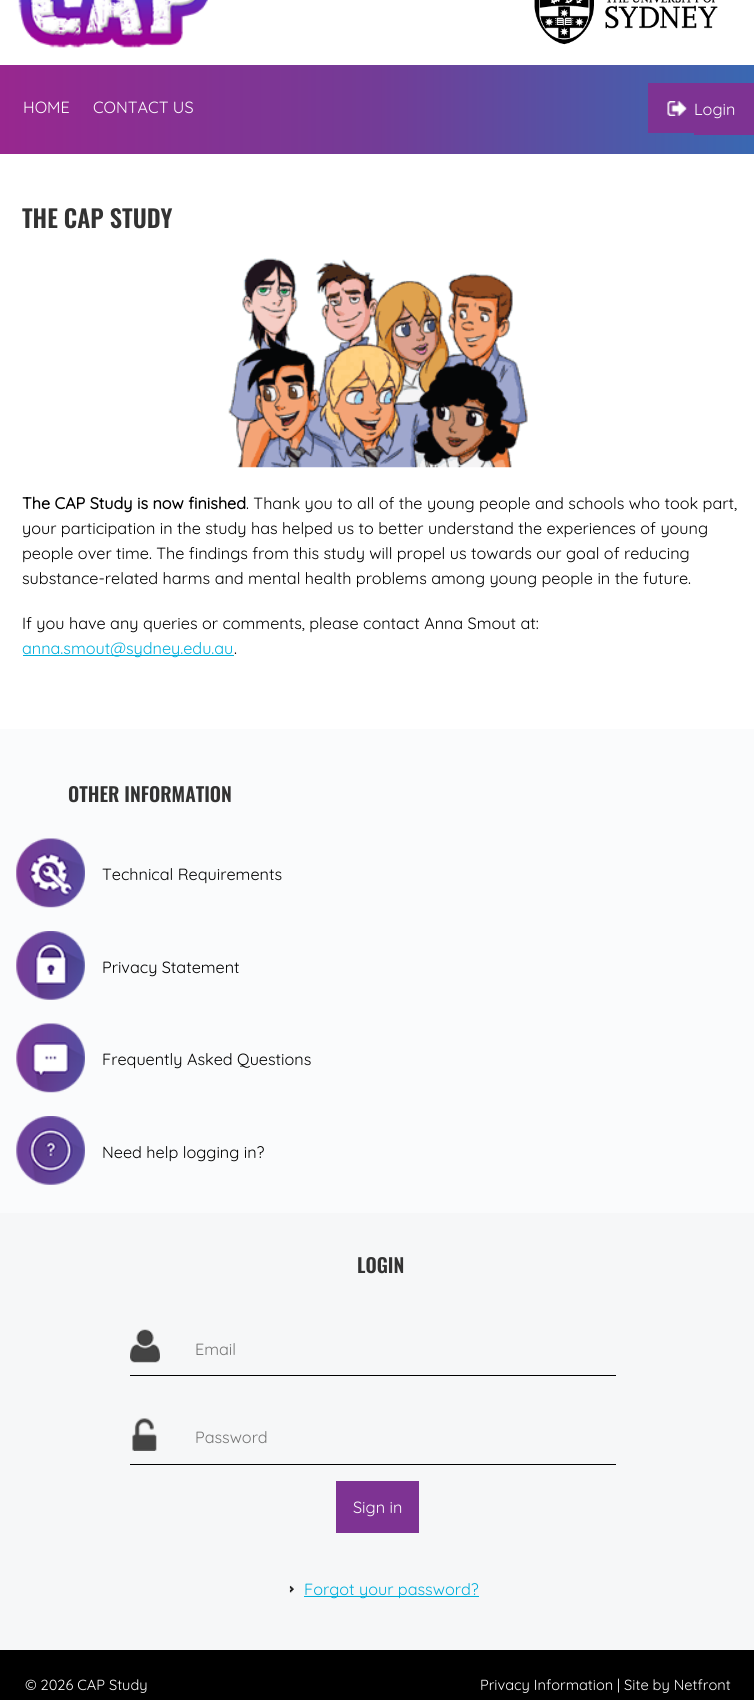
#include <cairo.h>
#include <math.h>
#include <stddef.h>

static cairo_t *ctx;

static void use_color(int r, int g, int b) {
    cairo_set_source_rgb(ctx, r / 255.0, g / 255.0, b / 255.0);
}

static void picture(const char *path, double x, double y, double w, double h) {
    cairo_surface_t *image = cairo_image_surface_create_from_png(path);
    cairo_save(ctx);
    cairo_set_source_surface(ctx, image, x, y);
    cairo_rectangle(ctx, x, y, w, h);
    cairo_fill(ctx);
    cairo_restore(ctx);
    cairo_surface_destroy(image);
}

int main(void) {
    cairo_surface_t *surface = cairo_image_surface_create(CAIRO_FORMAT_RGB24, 754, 1700);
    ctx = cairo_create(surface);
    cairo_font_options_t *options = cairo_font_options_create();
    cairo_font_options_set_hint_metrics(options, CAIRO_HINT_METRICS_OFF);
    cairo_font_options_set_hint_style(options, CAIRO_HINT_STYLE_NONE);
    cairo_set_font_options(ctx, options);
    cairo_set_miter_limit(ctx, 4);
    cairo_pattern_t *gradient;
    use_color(0, 0, 0);
    cairo_paint(ctx);
    use_color(255, 255, 255);
    cairo_rectangle(ctx, 0, 0, 754, 65);
    cairo_fill(ctx);
    picture("img1.png", 18, 0, 190, 48);
    picture("img2.png", 534, 0, 184, 45);
    gradient = cairo_pattern_create_linear(0, 109, 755, 109);
    cairo_pattern_add_color_stop_rgba(gradient, 0, 0.596, 0.153, 0.561, 1);
    cairo_pattern_add_color_stop_rgba(gradient, 0.5, 0.451, 0.235, 0.592, 1);
    cairo_pattern_add_color_stop_rgba(gradient, 1, 0.224, 0.408, 0.698, 1);
    cairo_set_source(ctx, gradient);
    cairo_pattern_destroy(gradient);
    cairo_rectangle(ctx, 0, 65, 754, 89);
    cairo_fill(ctx);
    cairo_select_font_face(ctx, "Quicksand Light", CAIRO_FONT_SLANT_NORMAL, CAIRO_FONT_WEIGHT_NORMAL);
    cairo_set_font_size(ctx, 16.2);
    use_color(255, 255, 255);
    cairo_move_to(ctx, 23, 113);
    cairo_show_text(ctx, "HOME");
    cairo_move_to(ctx, 93, 113);
    cairo_show_text(ctx, "CONTACT US");
    use_color(126, 51, 147);
    cairo_rectangle(ctx, 648, 83, 46, 50);
    cairo_fill(ctx);
    picture("img3.png", 667, 101, 20, 15);
    cairo_rectangle(ctx, 694, 83, 60, 52);
    cairo_fill(ctx);
    use_color(255, 255, 255);
    cairo_move_to(ctx, 694, 115);
    cairo_show_text(ctx, "Login");
    cairo_rectangle(ctx, 0, 154, 754, 575);
    cairo_fill(ctx);
    cairo_select_font_face(ctx, "Oswald SemiBold", CAIRO_FONT_SLANT_NORMAL, CAIRO_FONT_WEIGHT_NORMAL);
    cairo_set_font_size(ctx, 24.25);
    use_color(51, 51, 51);
    cairo_move_to(ctx, 22, 228);
    cairo_show_text(ctx, "THE CAP STUDY");
    picture("img4.png", 228, 258, 300, 210);
    cairo_select_font_face(ctx, "Quicksand", CAIRO_FONT_SLANT_NORMAL, CAIRO_FONT_WEIGHT_BOLD);
    cairo_set_font_size(ctx, 16.2);
    use_color(0, 0, 0);
    cairo_move_to(ctx, 22, 509);
    cairo_show_text(ctx, "The CAP Study is now finished");
    cairo_select_font_face(ctx, "Quicksand Light", CAIRO_FONT_SLANT_NORMAL, CAIRO_FONT_WEIGHT_NORMAL);
    cairo_move_to(ctx, 246, 509);
    cairo_show_text(ctx, ". Thank you to all of the young people and schools who took part,");
    cairo_move_to(ctx, 22, 534);
    cairo_show_text(ctx, "your participation in the study has helped us to better understand the experiences of young");
    cairo_move_to(ctx, 22, 559);
    cairo_show_text(ctx, "people over time. The findings from this study will propel us towards our goal of reducing");
    cairo_move_to(ctx, 22, 584);
    cairo_show_text(ctx, "substance-related harms and mental health problems among young people in the future.");
    cairo_move_to(ctx, 22, 629);
    cairo_show_text(ctx, "If you have any queries or comments, please contact Anna Smout at:");
    use_color(0, 174, 219);
    cairo_rectangle(ctx, 23, 655, 211, 1);
    cairo_fill(ctx);
    cairo_move_to(ctx, 22, 654);
    cairo_show_text(ctx, "anna.smout@sydney.edu.au");
    use_color(0, 0, 0);
    cairo_move_to(ctx, 234, 654);
    cairo_show_text(ctx, ".");
    use_color(250, 251, 252);
    cairo_rectangle(ctx, 0, 729, 754, 484);
    cairo_fill(ctx);
    cairo_select_font_face(ctx, "Oswald SemiBold", CAIRO_FONT_SLANT_NORMAL, CAIRO_FONT_WEIGHT_NORMAL);
    cairo_set_font_size(ctx, 19.5);
    use_color(51, 51, 51);
    cairo_move_to(ctx, 68, 802);
    cairo_show_text(ctx, "OTHER INFORMATION");
    picture("img5.png", 16, 838, 69, 70);
    cairo_select_font_face(ctx, "Quicksand Light", CAIRO_FONT_SLANT_NORMAL, CAIRO_FONT_WEIGHT_NORMAL);
    cairo_set_font_size(ctx, 16.2);
    use_color(0, 0, 0);
    cairo_move_to(ctx, 102, 880);
    cairo_show_text(ctx, "Technical Requirements");
    picture("img6.png", 16, 931, 69, 69);
    cairo_move_to(ctx, 102, 973);
    cairo_show_text(ctx, "Privacy Statement");
    picture("img7.png", 16, 1023, 69, 70);
    cairo_move_to(ctx, 102, 1065);
    cairo_show_text(ctx, "Frequently Asked Questions");
    picture("img8.png", 16, 1116, 69, 69);
    cairo_move_to(ctx, 102, 1158);
    cairo_show_text(ctx, "Need help logging in?");
    use_color(246, 247, 248);
    cairo_rectangle(ctx, 0, 1213, 754, 437);
    cairo_fill(ctx);
    cairo_select_font_face(ctx, "Oswald SemiBold", CAIRO_FONT_SLANT_NORMAL, CAIRO_FONT_WEIGHT_NORMAL);
    cairo_set_font_size(ctx, 19.5);
    use_color(51, 51, 51);
    cairo_move_to(ctx, 357, 1273);
    cairo_show_text(ctx, "LOGIN");
    picture("img9.png", 130, 1329, 30, 34);
    use_color(0, 0, 0);
    cairo_rectangle(ctx, 130, 1375, 486, 1);
    cairo_fill(ctx);
    cairo_select_font_face(ctx, "Quicksand Light", CAIRO_FONT_SLANT_NORMAL, CAIRO_FONT_WEIGHT_NORMAL);
    cairo_set_font_size(ctx, 16.2);
    use_color(117, 117, 117);
    cairo_move_to(ctx, 195, 1355);
    cairo_show_text(ctx, "Email");
    picture("img10.png", 132, 1418, 25, 33);
    use_color(0, 0, 0);
    cairo_rectangle(ctx, 130, 1464, 486, 1);
    cairo_fill(ctx);
    use_color(117, 117, 117);
    cairo_move_to(ctx, 195, 1443);
    cairo_show_text(ctx, "Password");
    use_color(126, 51, 147);
    cairo_rectangle(ctx, 336, 1481, 83, 52);
    cairo_fill(ctx);
    use_color(255, 255, 255);
    cairo_move_to(ctx, 353, 1513);
    cairo_show_text(ctx, "Sign in");
    picture("img11.png", 289, 1585, 5, 8);
    use_color(0, 174, 219);
    cairo_rectangle(ctx, 304, 1596, 175, 1);
    cairo_fill(ctx);
    cairo_move_to(ctx, 304, 1595);
    cairo_show_text(ctx, "Forgot your password?");
    cairo_set_font_size(ctx, 14.6);
    use_color(255, 255, 255);
    cairo_move_to(ctx, 25, 1690);
    cairo_show_text(ctx, "© 2026 CAP Study");
    cairo_move_to(ctx, 480, 1690);
    cairo_show_text(ctx, "Privacy Information | Site by Netfront");
    cairo_surface_write_to_png(surface, "result.png");
    cairo_font_options_destroy(options);
    cairo_destroy(ctx);
    cairo_surface_destroy(surface);
    return 0;
}
